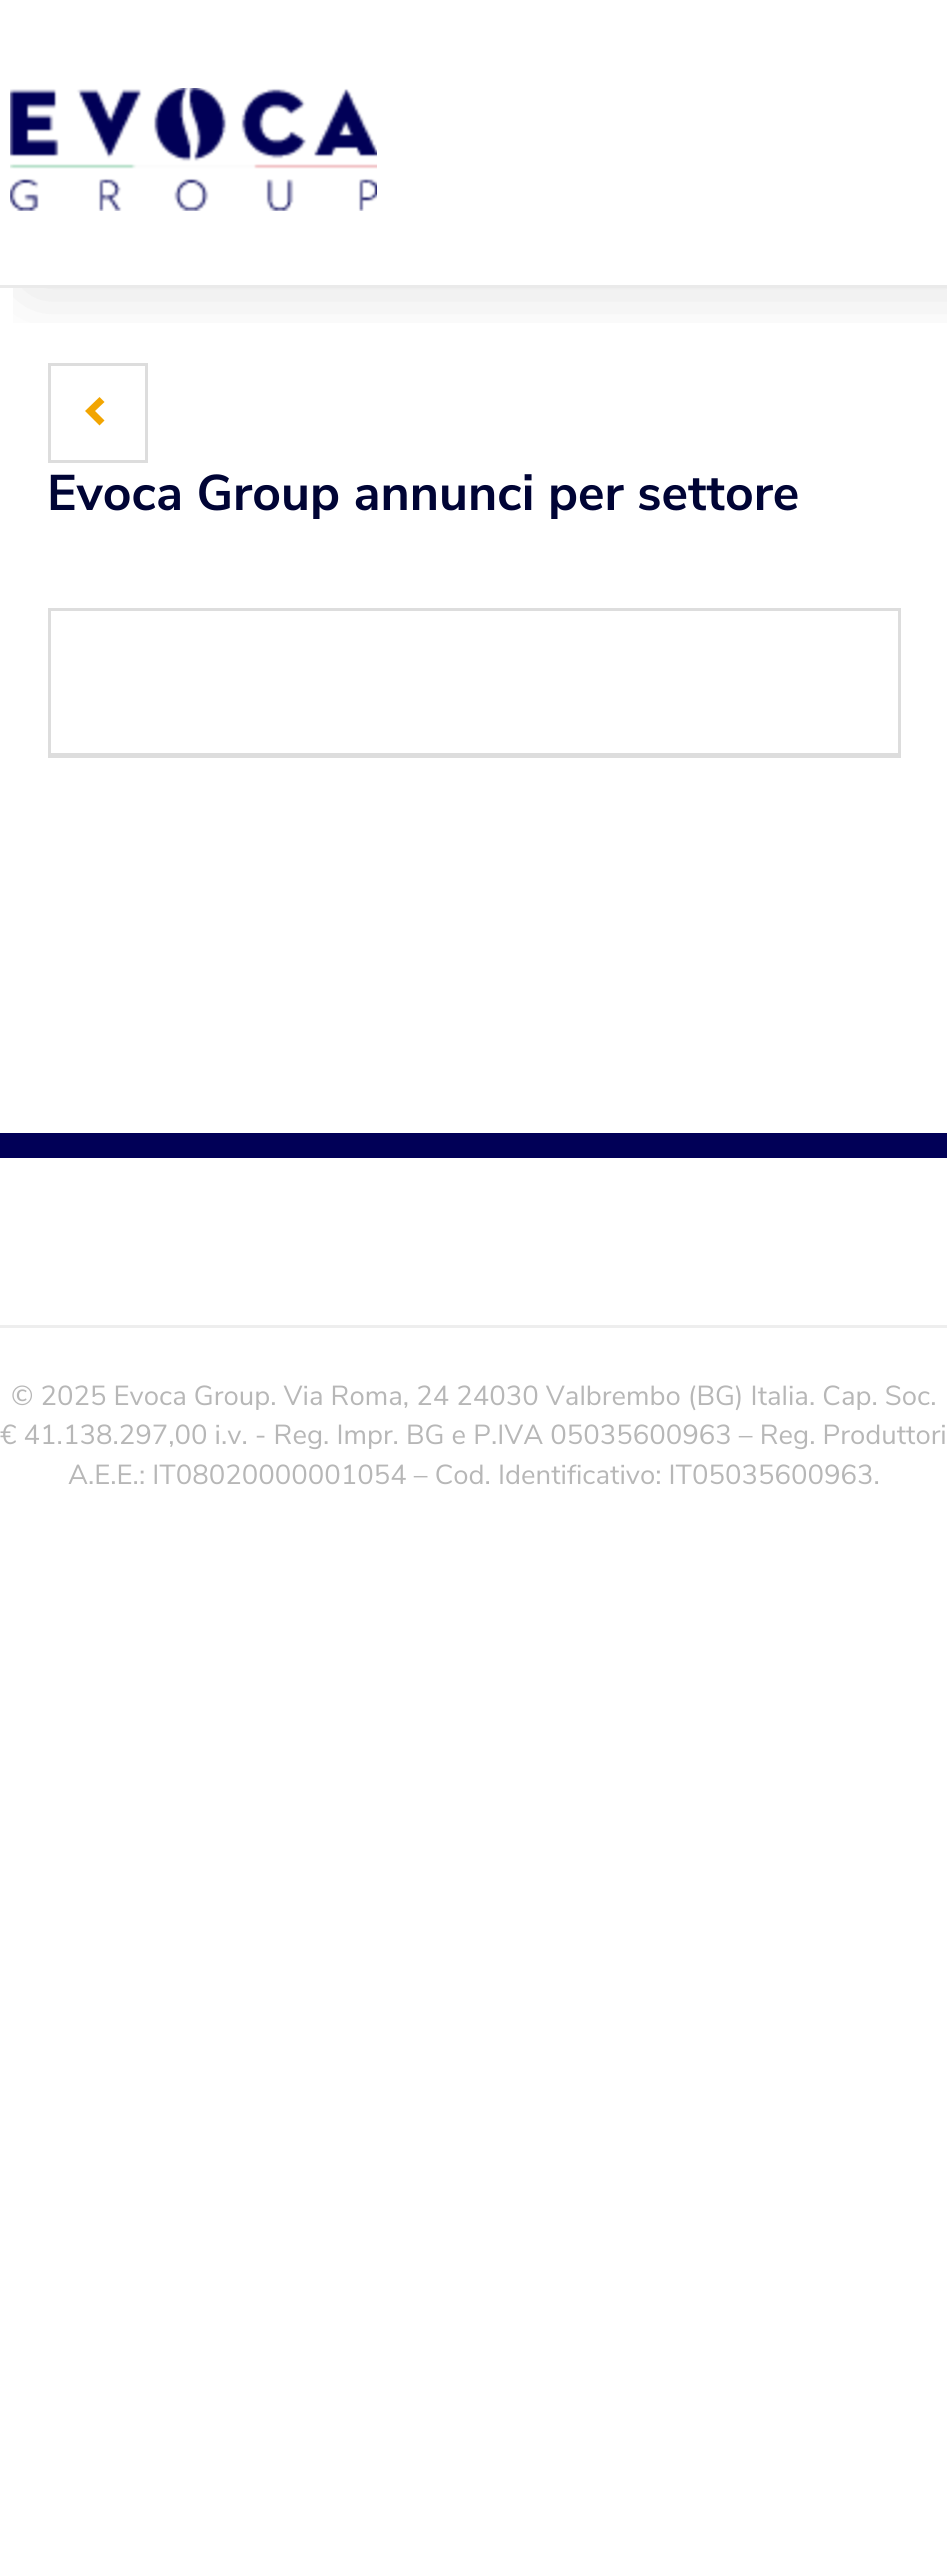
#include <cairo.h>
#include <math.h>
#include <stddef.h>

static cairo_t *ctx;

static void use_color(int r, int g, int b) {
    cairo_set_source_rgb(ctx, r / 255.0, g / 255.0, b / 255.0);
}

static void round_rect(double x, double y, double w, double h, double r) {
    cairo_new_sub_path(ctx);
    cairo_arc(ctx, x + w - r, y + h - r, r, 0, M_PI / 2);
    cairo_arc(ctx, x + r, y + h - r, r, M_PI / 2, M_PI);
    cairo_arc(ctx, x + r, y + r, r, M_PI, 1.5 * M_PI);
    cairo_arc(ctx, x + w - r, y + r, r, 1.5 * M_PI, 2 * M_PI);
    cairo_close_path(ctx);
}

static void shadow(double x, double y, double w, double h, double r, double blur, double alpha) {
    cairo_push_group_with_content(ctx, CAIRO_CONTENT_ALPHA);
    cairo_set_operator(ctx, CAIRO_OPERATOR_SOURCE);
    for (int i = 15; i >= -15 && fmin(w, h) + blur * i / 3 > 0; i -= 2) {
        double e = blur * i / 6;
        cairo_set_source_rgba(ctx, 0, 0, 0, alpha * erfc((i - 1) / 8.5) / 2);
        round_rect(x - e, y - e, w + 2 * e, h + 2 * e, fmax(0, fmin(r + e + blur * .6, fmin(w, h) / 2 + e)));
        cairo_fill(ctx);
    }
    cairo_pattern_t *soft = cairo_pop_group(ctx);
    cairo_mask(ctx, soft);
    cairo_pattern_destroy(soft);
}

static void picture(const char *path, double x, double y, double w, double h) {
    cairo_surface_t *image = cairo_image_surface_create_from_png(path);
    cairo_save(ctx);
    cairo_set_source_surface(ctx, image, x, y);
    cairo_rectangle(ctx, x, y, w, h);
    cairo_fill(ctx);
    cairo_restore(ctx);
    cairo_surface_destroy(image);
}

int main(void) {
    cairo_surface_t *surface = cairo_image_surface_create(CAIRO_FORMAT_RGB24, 947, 2562);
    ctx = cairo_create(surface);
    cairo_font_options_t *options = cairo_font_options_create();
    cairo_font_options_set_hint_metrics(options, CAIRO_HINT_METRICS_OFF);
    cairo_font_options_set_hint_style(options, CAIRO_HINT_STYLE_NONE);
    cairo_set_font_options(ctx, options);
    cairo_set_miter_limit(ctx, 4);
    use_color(255, 255, 255);
    cairo_paint(ctx);
    cairo_save(ctx);
    cairo_rectangle(ctx, 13, 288, 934, 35);
    cairo_clip(ctx);
    use_color(0, 0, 0);
    shadow(30, 5, 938, 278, 0, 37.5, 0.14);
    cairo_restore(ctx);
    use_color(234, 234, 234);
    cairo_rectangle(ctx, 0, 285, 947, 3);
    cairo_fill(ctx);
    picture("img1.png", 10, 88, 367, 123);
    cairo_rectangle(ctx, 49.5, 364.5, 97, 97);
    use_color(221, 221, 221);
    cairo_set_line_width(ctx, 3);
    cairo_stroke(ctx);
    use_color(242, 165, 1);
    cairo_new_path(ctx);
    cairo_move_to(ctx, 99.5, 425.5);
    cairo_line_to(ctx, 85, 411);
    cairo_line_to(ctx, 99.5, 397);
    cairo_line_to(ctx, 104.5, 402);
    cairo_line_to(ctx, 95, 411);
    cairo_line_to(ctx, 104.5, 420.5);
    cairo_close_path(ctx);
    cairo_fill(ctx);
    cairo_select_font_face(ctx, "Nunito Sans", CAIRO_FONT_SLANT_NORMAL, CAIRO_FONT_WEIGHT_BOLD);
    cairo_set_font_size(ctx, 50);
    use_color(0, 4, 53);
    cairo_move_to(ctx, 47, 510);
    cairo_show_text(ctx, "Evoca Group annunci per settore");
    use_color(221, 221, 221);
    cairo_rectangle(ctx, 48, 608, 852, 3);
    cairo_fill(ctx);
    cairo_rectangle(ctx, 898, 608, 3, 150);
    cairo_fill(ctx);
    cairo_rectangle(ctx, 48, 753, 852, 5);
    cairo_fill(ctx);
    cairo_rectangle(ctx, 48, 608, 3, 150);
    cairo_fill(ctx);
    use_color(1, 0, 87);
    cairo_rectangle(ctx, 0, 1133, 947, 25);
    cairo_fill(ctx);
    use_color(238, 238, 238);
    cairo_rectangle(ctx, 0, 1325, 947, 3);
    cairo_fill(ctx);
    cairo_select_font_face(ctx, "Nunito Sans", CAIRO_FONT_SLANT_NORMAL, CAIRO_FONT_WEIGHT_NORMAL);
    cairo_set_font_size(ctx, 27.5);
    use_color(183, 183, 183);
    cairo_move_to(ctx, 11, 1405);
    cairo_show_text(ctx, "© 2025 Evoca Group. Via Roma, 24 24030 Valbrembo (BG) Italia. Cap. Soc.");
    cairo_move_to(ctx, 0, 1444);
    cairo_show_text(ctx, "€ 41.138.297,00 i.v. - Reg. Impr. BG e P.IVA 05035600963 – Reg. Produttori");
    cairo_move_to(ctx, 68, 1484);
    cairo_show_text(ctx, "A.E.E.: IT08020000001054 – Cod. Identificativo: IT05035600963.");
    cairo_surface_write_to_png(surface, "result.png");
    cairo_font_options_destroy(options);
    cairo_destroy(ctx);
    cairo_surface_destroy(surface);
    return 0;
}
